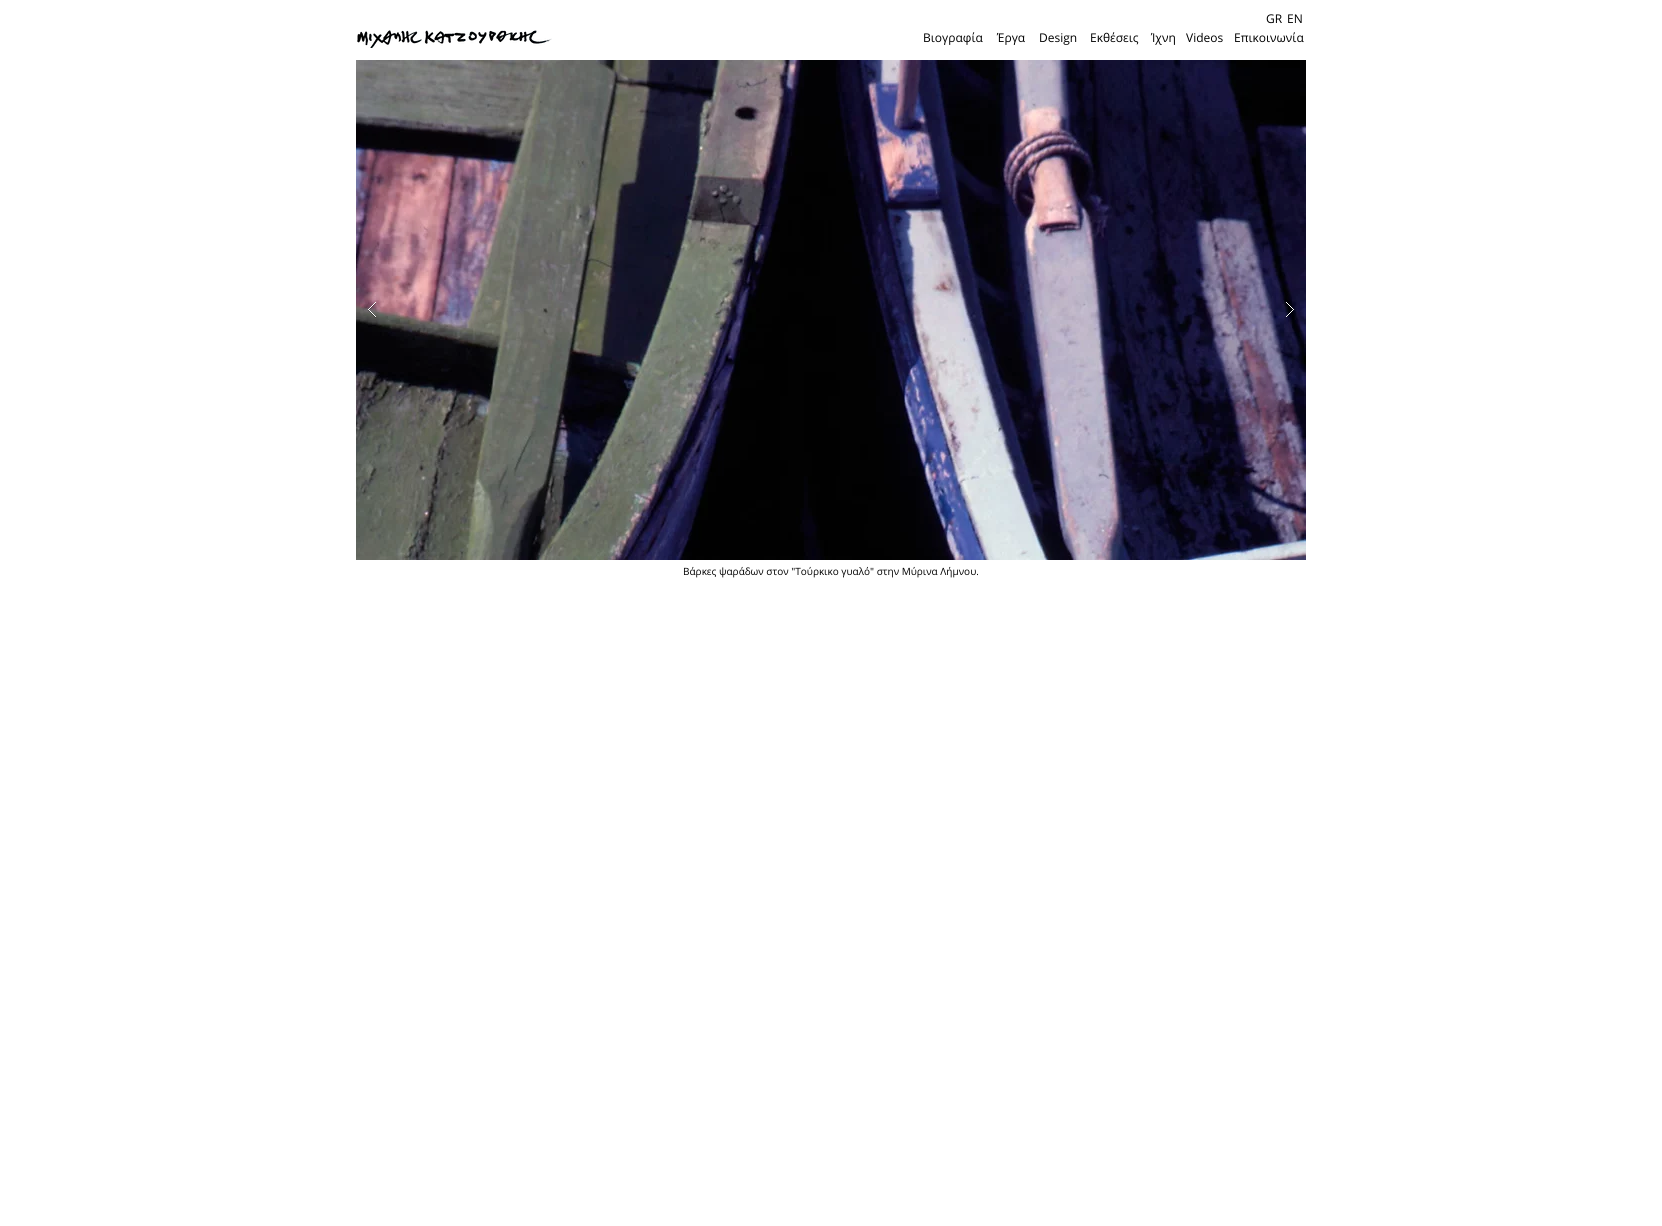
#include <cairo.h>
#include <math.h>
#include <stddef.h>

static cairo_t *ctx;

static void use_color(int r, int g, int b) {
    cairo_set_source_rgb(ctx, r / 255.0, g / 255.0, b / 255.0);
}

static void picture(const char *path, double x, double y, double w, double h) {
    cairo_surface_t *image = cairo_image_surface_create_from_png(path);
    cairo_save(ctx);
    cairo_set_source_surface(ctx, image, x, y);
    cairo_rectangle(ctx, x, y, w, h);
    cairo_fill(ctx);
    cairo_restore(ctx);
    cairo_surface_destroy(image);
}

int main(void) {
    cairo_surface_t *surface = cairo_image_surface_create(CAIRO_FORMAT_RGB24, 1662, 1226);
    ctx = cairo_create(surface);
    cairo_font_options_t *options = cairo_font_options_create();
    cairo_font_options_set_hint_metrics(options, CAIRO_HINT_METRICS_OFF);
    cairo_font_options_set_hint_style(options, CAIRO_HINT_STYLE_NONE);
    cairo_set_font_options(ctx, options);
    cairo_set_miter_limit(ctx, 4);
    use_color(255, 255, 255);
    cairo_paint(ctx);
    cairo_select_font_face(ctx, "Open Sans", CAIRO_FONT_SLANT_NORMAL, CAIRO_FONT_WEIGHT_NORMAL);
    cairo_set_font_size(ctx, 12);
    use_color(0, 0, 0);
    cairo_move_to(ctx, 1266, 23);
    cairo_show_text(ctx, "GR");
    cairo_move_to(ctx, 1287, 23);
    cairo_show_text(ctx, "EN");
    picture("img1.png", 357, 30, 195, 18);
    cairo_move_to(ctx, 923, 42);
    cairo_show_text(ctx, "Βιογραφία");
    cairo_move_to(ctx, 997, 42);
    cairo_show_text(ctx, "Έργα");
    cairo_move_to(ctx, 1039, 42);
    cairo_show_text(ctx, "Design");
    cairo_move_to(ctx, 1090, 42);
    cairo_show_text(ctx, "Εκθέσεις");
    cairo_move_to(ctx, 1151, 42);
    cairo_show_text(ctx, "Ίχνη");
    cairo_move_to(ctx, 1186, 42);
    cairo_show_text(ctx, "Videos");
    cairo_move_to(ctx, 1234, 42);
    cairo_show_text(ctx, "Επικοινωνία");
    picture("img2.png", 356, 60, 950, 500);
    picture("img3.png", 368, 302, 8, 16);
    picture("img4.png", 1286, 302, 8, 16);
    cairo_set_font_size(ctx, 10);
    cairo_move_to(ctx, 683, 575);
    cairo_show_text(ctx, "Βάρκες ψαράδων στον \"Τούρκικο γυαλό\" στην Μύρινα Λήμνου.");
    cairo_surface_write_to_png(surface, "result.png");
    cairo_font_options_destroy(options);
    cairo_destroy(ctx);
    cairo_surface_destroy(surface);
    return 0;
}
